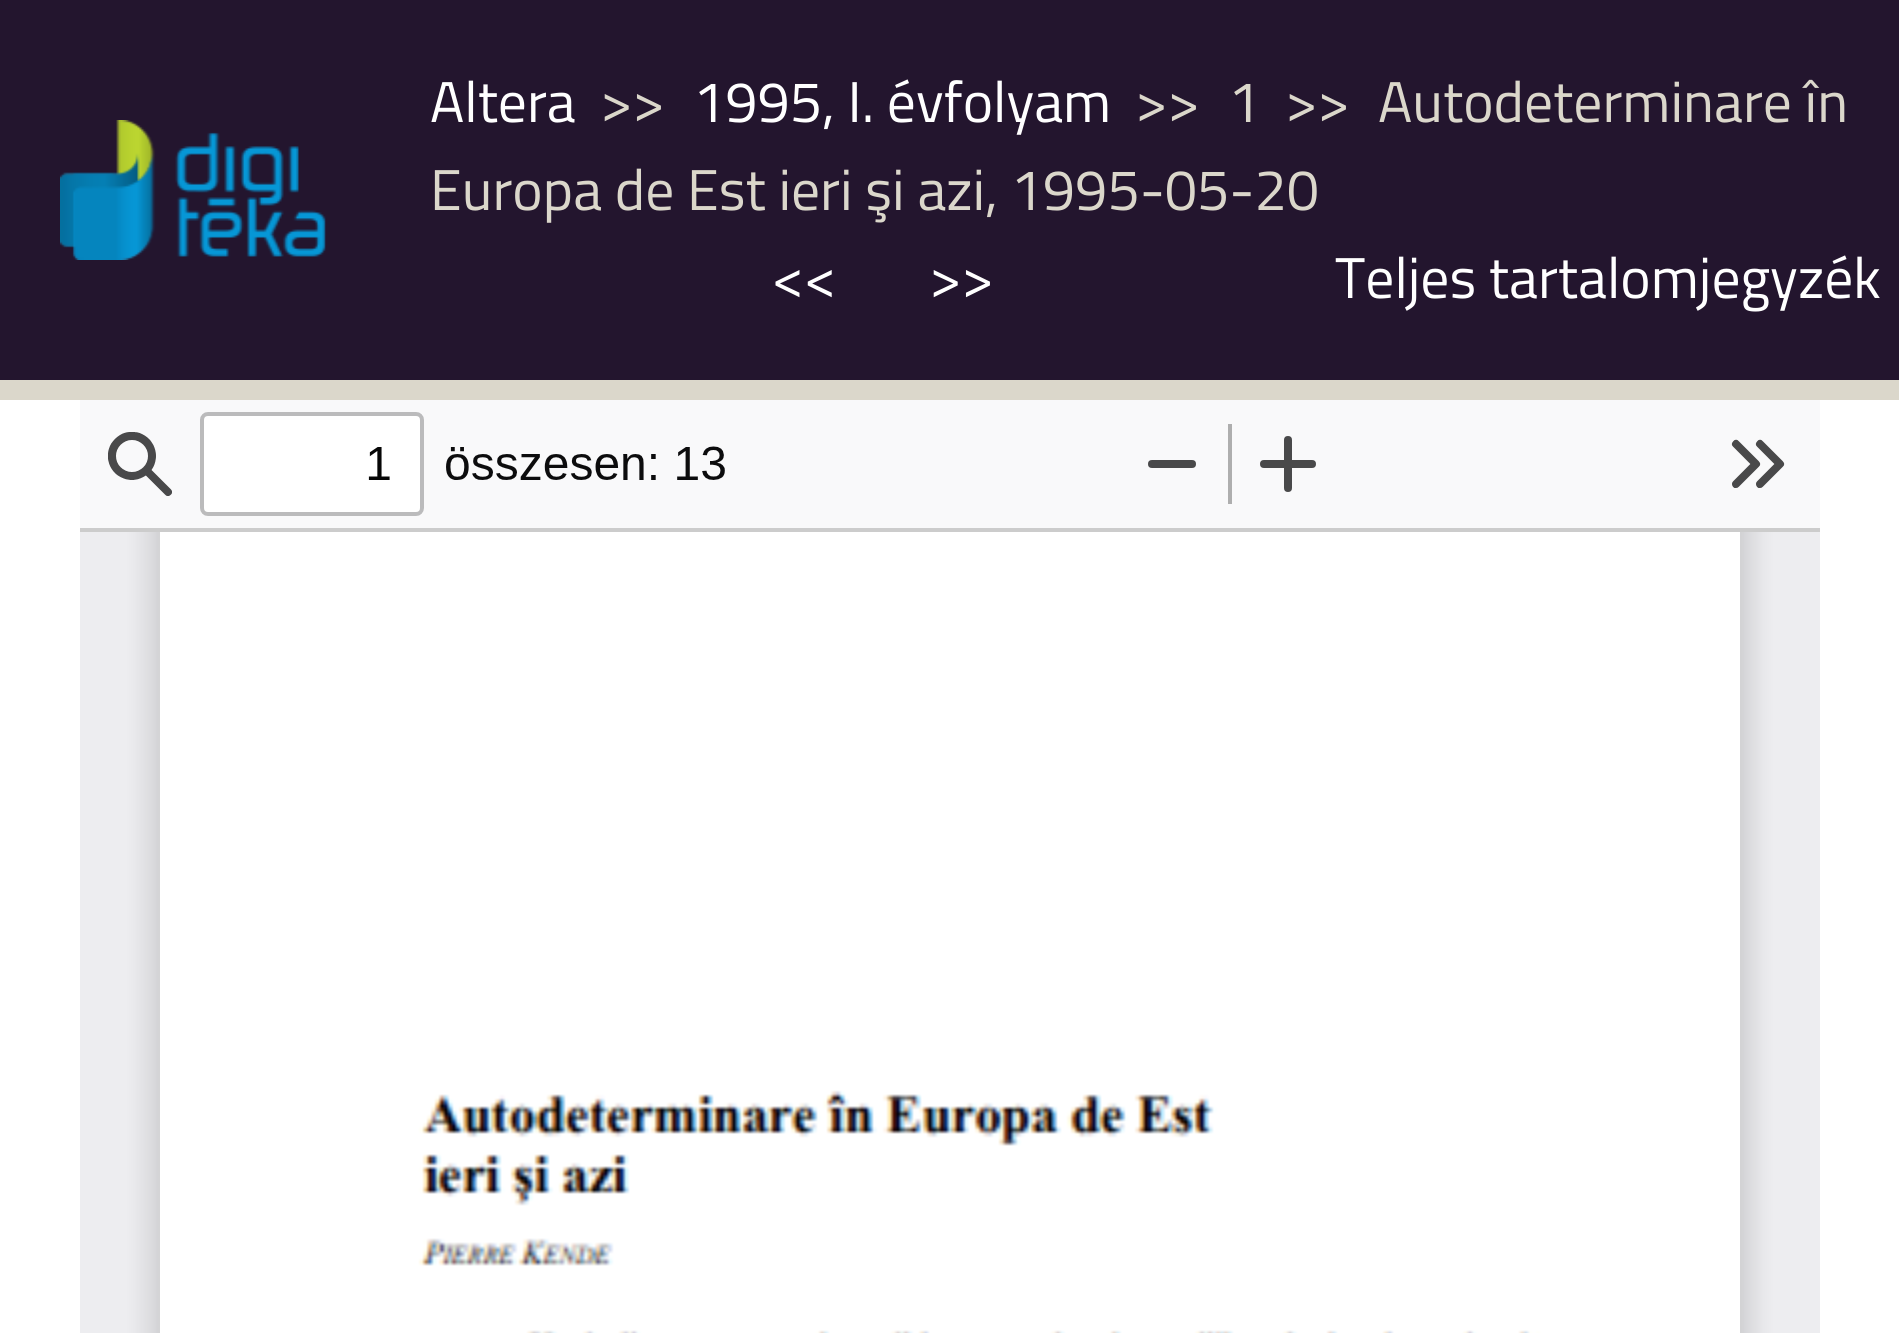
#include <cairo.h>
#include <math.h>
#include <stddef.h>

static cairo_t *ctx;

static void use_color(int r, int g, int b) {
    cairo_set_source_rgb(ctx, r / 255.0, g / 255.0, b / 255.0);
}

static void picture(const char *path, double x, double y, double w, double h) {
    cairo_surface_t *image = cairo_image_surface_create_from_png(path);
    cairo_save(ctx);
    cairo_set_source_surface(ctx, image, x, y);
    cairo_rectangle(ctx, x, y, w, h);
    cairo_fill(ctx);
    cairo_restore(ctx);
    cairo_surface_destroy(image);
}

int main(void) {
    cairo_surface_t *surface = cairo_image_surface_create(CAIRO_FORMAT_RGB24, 1899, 1333);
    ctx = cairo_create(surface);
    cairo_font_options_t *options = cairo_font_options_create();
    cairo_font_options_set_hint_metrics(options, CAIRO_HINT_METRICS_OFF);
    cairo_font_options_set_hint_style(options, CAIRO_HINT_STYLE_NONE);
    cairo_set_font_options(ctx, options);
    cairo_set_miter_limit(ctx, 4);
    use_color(255, 255, 255);
    cairo_paint(ctx);
    use_color(35, 21, 46);
    cairo_rectangle(ctx, 0, 0, 1899, 380);
    cairo_fill(ctx);
    use_color(219, 215, 203);
    cairo_rectangle(ctx, 0, 380, 1899, 20);
    cairo_fill(ctx);
    picture("img1.png", 60, 120, 266, 140);
    cairo_select_font_face(ctx, "Titillium Web", CAIRO_FONT_SLANT_NORMAL, CAIRO_FONT_WEIGHT_NORMAL);
    cairo_set_font_size(ctx, 57.6);
    use_color(255, 255, 255);
    cairo_move_to(ctx, 430, 122);
    cairo_show_text(ctx, "Altera");
    use_color(219, 215, 203);
    cairo_move_to(ctx, 600, 122);
    cairo_show_text(ctx, ">>");
    use_color(255, 255, 255);
    cairo_move_to(ctx, 693, 122);
    cairo_show_text(ctx, "1995, I. évfolyam");
    use_color(219, 215, 203);
    cairo_move_to(ctx, 1135, 122);
    cairo_show_text(ctx, ">>");
    cairo_move_to(ctx, 1228, 122);
    cairo_show_text(ctx, "1");
    cairo_move_to(ctx, 1285, 122);
    cairo_show_text(ctx, ">>");
    cairo_move_to(ctx, 1378, 122);
    cairo_show_text(ctx, "Autodeterminare în");
    cairo_move_to(ctx, 430, 210);
    cairo_show_text(ctx, "Europa de Est ieri şi azi, 1995-05-20");
    use_color(255, 255, 255);
    cairo_move_to(ctx, 772, 298);
    cairo_show_text(ctx, "<<");
    cairo_move_to(ctx, 929, 298);
    cairo_show_text(ctx, ">>");
    cairo_move_to(ctx, 1335, 298);
    cairo_show_text(ctx, "Teljes tartalomjegyzék");
    picture("img2.png", 80, 400, 1740, 933);
    cairo_surface_write_to_png(surface, "result.png");
    cairo_font_options_destroy(options);
    cairo_destroy(ctx);
    cairo_surface_destroy(surface);
    return 0;
}
